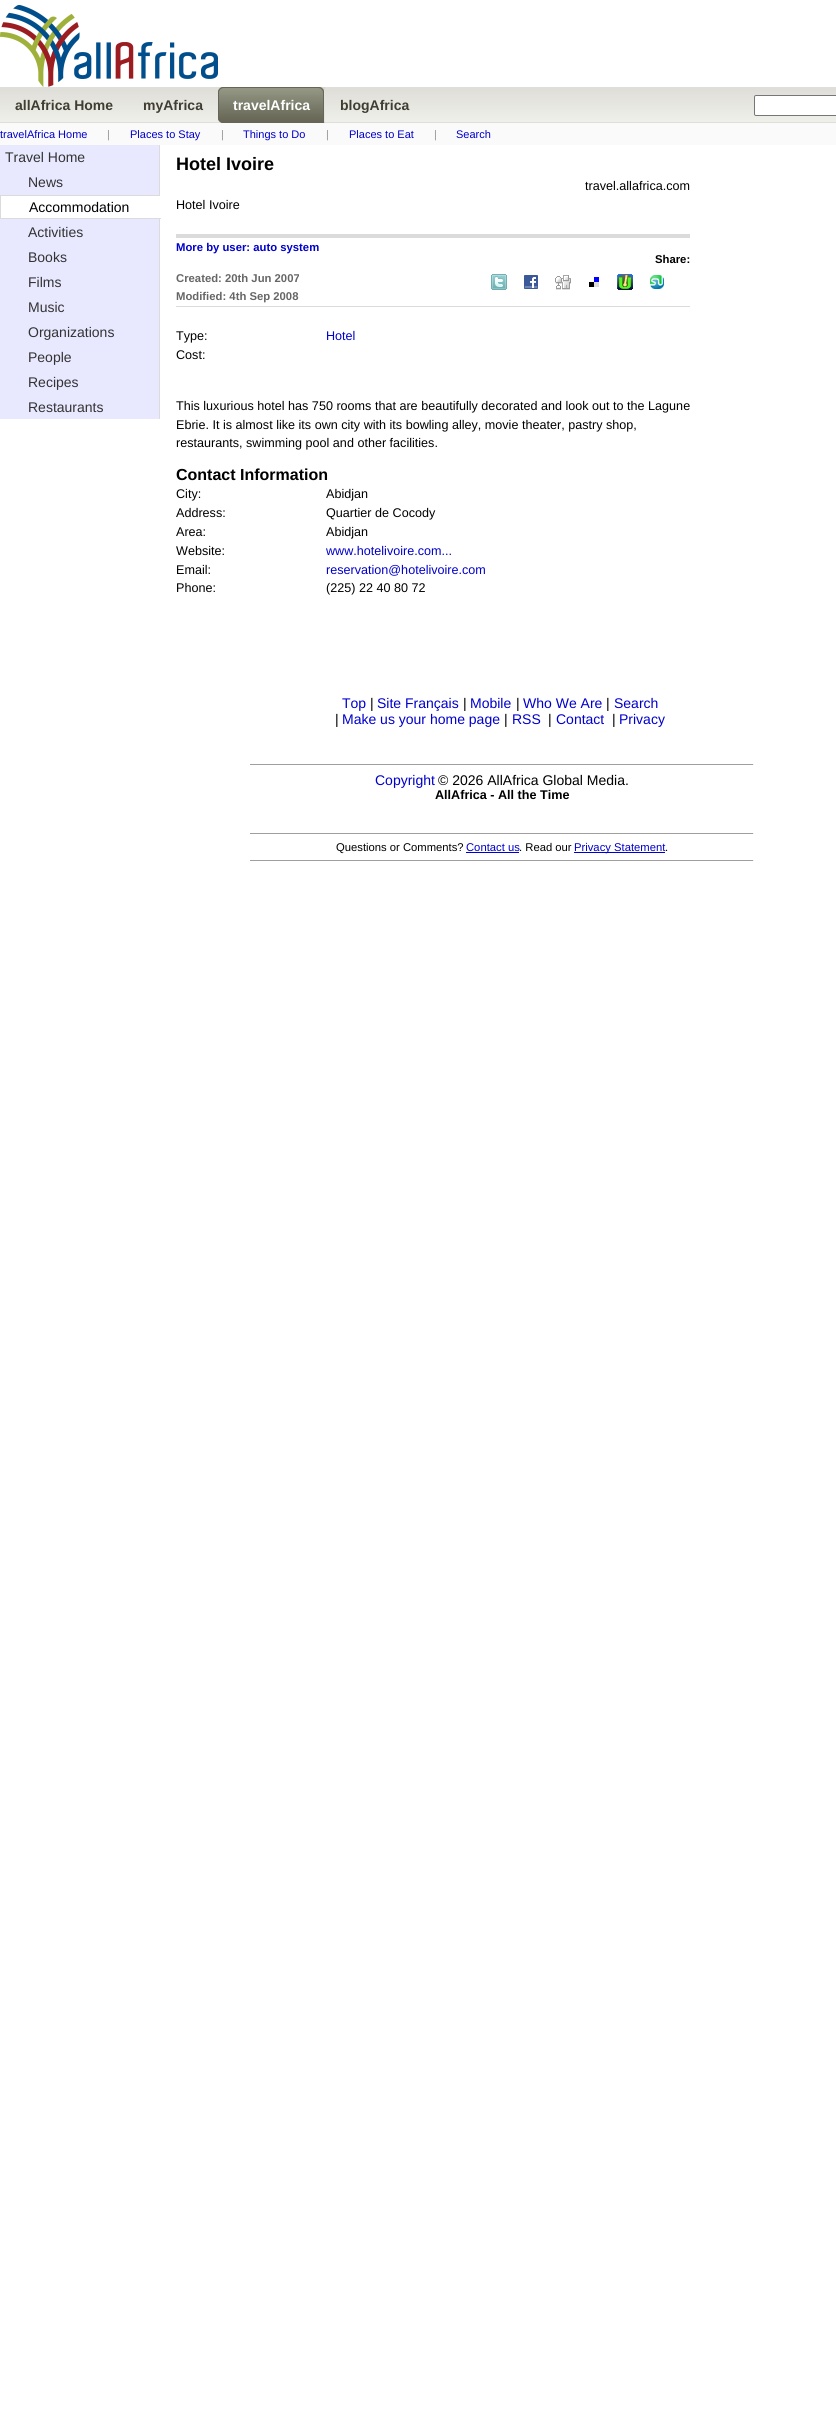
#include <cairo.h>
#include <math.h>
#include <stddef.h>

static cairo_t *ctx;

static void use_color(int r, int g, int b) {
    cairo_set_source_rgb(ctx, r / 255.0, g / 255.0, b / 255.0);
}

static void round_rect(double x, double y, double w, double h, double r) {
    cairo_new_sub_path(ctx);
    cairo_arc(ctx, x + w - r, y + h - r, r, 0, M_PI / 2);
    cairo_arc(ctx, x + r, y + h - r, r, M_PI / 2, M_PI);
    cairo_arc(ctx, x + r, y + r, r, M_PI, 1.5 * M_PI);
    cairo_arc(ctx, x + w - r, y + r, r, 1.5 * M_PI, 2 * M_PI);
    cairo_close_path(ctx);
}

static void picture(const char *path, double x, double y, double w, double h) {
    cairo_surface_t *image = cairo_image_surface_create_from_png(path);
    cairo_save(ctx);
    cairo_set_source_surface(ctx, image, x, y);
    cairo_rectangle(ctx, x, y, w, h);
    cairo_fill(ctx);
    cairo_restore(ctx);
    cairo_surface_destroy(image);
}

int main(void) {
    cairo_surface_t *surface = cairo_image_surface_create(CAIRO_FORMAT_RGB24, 836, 2431);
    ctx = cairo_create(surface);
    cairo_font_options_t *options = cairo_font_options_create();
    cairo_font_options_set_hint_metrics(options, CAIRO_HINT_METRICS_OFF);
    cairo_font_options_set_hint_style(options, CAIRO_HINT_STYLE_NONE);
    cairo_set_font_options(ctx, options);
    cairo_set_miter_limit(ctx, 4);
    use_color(255, 255, 255);
    cairo_paint(ctx);
    picture("img1.png", 0, 5, 218, 82);
    picture("img2.png", 0, 87, 836, 36);
    cairo_select_font_face(ctx, "Liberation Sans", CAIRO_FONT_SLANT_NORMAL, CAIRO_FONT_WEIGHT_BOLD);
    cairo_set_font_size(ctx, 14);
    use_color(64, 62, 50);
    cairo_move_to(ctx, 15, 110);
    cairo_show_text(ctx, "allAfrica Home");
    cairo_move_to(ctx, 143, 110);
    cairo_show_text(ctx, "myAfrica");
    picture("img3.png", 218, 87, 20, 36);
    picture("img4.png", 238, 87, 87, 36);
    use_color(255, 255, 255);
    cairo_move_to(ctx, 233, 110);
    cairo_show_text(ctx, "travelAfrica");
    use_color(64, 62, 50);
    cairo_move_to(ctx, 340, 110);
    cairo_show_text(ctx, "blogAfrica");
    use_color(255, 255, 255);
    round_rect(754.5, 95.5, 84, 20, 1.5);
    cairo_fill_preserve(ctx);
    use_color(118, 118, 118);
    cairo_set_line_width(ctx, 1);
    cairo_stroke(ctx);
    use_color(250, 250, 250);
    cairo_rectangle(ctx, 0, 123, 836, 22);
    cairo_fill(ctx);
    cairo_select_font_face(ctx, "Liberation Sans", CAIRO_FONT_SLANT_NORMAL, CAIRO_FONT_WEIGHT_NORMAL);
    cairo_set_font_size(ctx, 11);
    use_color(0, 0, 205);
    cairo_move_to(ctx, 0, 138);
    cairo_show_text(ctx, "travelAfrica Home");
    use_color(153, 153, 153);
    cairo_move_to(ctx, 107, 138);
    cairo_show_text(ctx, "|");
    use_color(0, 0, 205);
    cairo_move_to(ctx, 130, 138);
    cairo_show_text(ctx, "Places to Stay");
    use_color(153, 153, 153);
    cairo_move_to(ctx, 221, 138);
    cairo_show_text(ctx, "|");
    use_color(0, 0, 205);
    cairo_move_to(ctx, 243, 138);
    cairo_show_text(ctx, "Things to Do");
    use_color(153, 153, 153);
    cairo_move_to(ctx, 326, 138);
    cairo_show_text(ctx, "|");
    use_color(0, 0, 205);
    cairo_move_to(ctx, 349, 138);
    cairo_show_text(ctx, "Places to Eat");
    use_color(153, 153, 153);
    cairo_move_to(ctx, 434, 138);
    cairo_show_text(ctx, "|");
    use_color(0, 0, 205);
    cairo_move_to(ctx, 456, 138);
    cairo_show_text(ctx, "Search");
    use_color(232, 232, 255);
    cairo_rectangle(ctx, 0, 145, 159, 274);
    cairo_fill(ctx);
    use_color(219, 219, 219);
    cairo_rectangle(ctx, 159, 145, 1, 274);
    cairo_fill(ctx);
    cairo_set_font_size(ctx, 14);
    use_color(51, 51, 51);
    cairo_move_to(ctx, 5, 162);
    cairo_show_text(ctx, "Travel Home");
    cairo_move_to(ctx, 28, 187);
    cairo_show_text(ctx, "News");
    use_color(255, 255, 255);
    cairo_rectangle(ctx, 1, 196, 159, 22);
    cairo_fill(ctx);
    use_color(219, 219, 219);
    cairo_rectangle(ctx, 0, 195, 161, 1);
    cairo_fill(ctx);
    use_color(255, 255, 255);
    cairo_rectangle(ctx, 160, 195, 1, 1);
    cairo_fill(ctx);
    use_color(219, 219, 219);
    cairo_rectangle(ctx, 0, 218, 161, 1);
    cairo_fill(ctx);
    cairo_rectangle(ctx, 0, 195, 1, 24);
    cairo_fill(ctx);
    use_color(0, 0, 0);
    cairo_move_to(ctx, 29, 212);
    cairo_show_text(ctx, "Accommodation");
    use_color(51, 51, 51);
    cairo_move_to(ctx, 28, 237);
    cairo_show_text(ctx, "Activities");
    cairo_move_to(ctx, 28, 262);
    cairo_show_text(ctx, "Books");
    cairo_move_to(ctx, 28, 287);
    cairo_show_text(ctx, "Films");
    cairo_move_to(ctx, 28, 312);
    cairo_show_text(ctx, "Music");
    cairo_move_to(ctx, 28, 337);
    cairo_show_text(ctx, "Organizations");
    cairo_move_to(ctx, 28, 362);
    cairo_show_text(ctx, "People");
    cairo_move_to(ctx, 28, 387);
    cairo_show_text(ctx, "Recipes");
    cairo_move_to(ctx, 28, 412);
    cairo_show_text(ctx, "Restaurants");
    cairo_select_font_face(ctx, "Liberation Sans", CAIRO_FONT_SLANT_NORMAL, CAIRO_FONT_WEIGHT_BOLD);
    cairo_set_font_size(ctx, 18);
    use_color(0, 0, 0);
    cairo_move_to(ctx, 176, 170);
    cairo_show_text(ctx, "Hotel Ivoire");
    cairo_select_font_face(ctx, "Liberation Sans", CAIRO_FONT_SLANT_NORMAL, CAIRO_FONT_WEIGHT_NORMAL);
    cairo_set_font_size(ctx, 12.6);
    cairo_move_to(ctx, 585, 190);
    cairo_show_text(ctx, "travel.allafrica.com");
    cairo_move_to(ctx, 176, 209);
    cairo_show_text(ctx, "Hotel Ivoire");
    use_color(219, 219, 219);
    cairo_rectangle(ctx, 176, 234, 514, 4);
    cairo_fill(ctx);
    cairo_rectangle(ctx, 176, 306, 514, 1);
    cairo_fill(ctx);
    cairo_select_font_face(ctx, "Liberation Sans", CAIRO_FONT_SLANT_NORMAL, CAIRO_FONT_WEIGHT_BOLD);
    cairo_set_font_size(ctx, 11.3);
    use_color(0, 0, 205);
    cairo_move_to(ctx, 176, 251);
    cairo_show_text(ctx, "More by user: auto system");
    use_color(102, 102, 102);
    cairo_move_to(ctx, 176, 282);
    cairo_show_text(ctx, "Created: 20th Jun 2007");
    cairo_move_to(ctx, 176, 300);
    cairo_show_text(ctx, "Modified: 4th Sep 2008");
    use_color(0, 0, 0);
    cairo_move_to(ctx, 655, 263);
    cairo_show_text(ctx, "Share:");
    picture("img5.png", 491, 274, 16, 16);
    picture("img6.png", 524, 275, 14, 14);
    picture("img7.png", 555, 275, 16, 15);
    picture("img8.png", 589, 277, 10, 10);
    picture("img9.png", 617, 274, 16, 16);
    picture("img10.png", 650, 275, 14, 14);
    cairo_select_font_face(ctx, "Liberation Sans", CAIRO_FONT_SLANT_NORMAL, CAIRO_FONT_WEIGHT_NORMAL);
    cairo_set_font_size(ctx, 12.6);
    cairo_move_to(ctx, 176, 340);
    cairo_show_text(ctx, "Type:");
    use_color(0, 0, 205);
    cairo_move_to(ctx, 326, 340);
    cairo_show_text(ctx, "Hotel");
    use_color(0, 0, 0);
    cairo_move_to(ctx, 176, 359);
    cairo_show_text(ctx, "Cost:");
    cairo_move_to(ctx, 176, 410);
    cairo_show_text(ctx, "This luxurious hotel has 750 rooms that are beautifully decorated and look out to the Lagune");
    cairo_move_to(ctx, 176, 429);
    cairo_show_text(ctx, "Ebrie. It is almost like its own city with its bowling alley, movie theater, pastry shop,");
    cairo_move_to(ctx, 176, 447);
    cairo_show_text(ctx, "restaurants, swimming pool and other facilities.");
    cairo_select_font_face(ctx, "Liberation Sans", CAIRO_FONT_SLANT_NORMAL, CAIRO_FONT_WEIGHT_BOLD);
    cairo_set_font_size(ctx, 16);
    cairo_move_to(ctx, 176, 480);
    cairo_show_text(ctx, "Contact Information");
    cairo_select_font_face(ctx, "Liberation Sans", CAIRO_FONT_SLANT_NORMAL, CAIRO_FONT_WEIGHT_NORMAL);
    cairo_set_font_size(ctx, 12.6);
    cairo_move_to(ctx, 176, 498);
    cairo_show_text(ctx, "City:");
    cairo_move_to(ctx, 326, 498);
    cairo_show_text(ctx, "Abidjan");
    cairo_move_to(ctx, 176, 517);
    cairo_show_text(ctx, "Address:");
    cairo_move_to(ctx, 326, 517);
    cairo_show_text(ctx, "Quartier de Cocody");
    cairo_move_to(ctx, 176, 536);
    cairo_show_text(ctx, "Area:");
    cairo_move_to(ctx, 326, 536);
    cairo_show_text(ctx, "Abidjan");
    cairo_move_to(ctx, 176, 555);
    cairo_show_text(ctx, "Website:");
    use_color(0, 0, 205);
    cairo_move_to(ctx, 326, 555);
    cairo_show_text(ctx, "www.hotelivoire.com...");
    use_color(0, 0, 0);
    cairo_move_to(ctx, 176, 574);
    cairo_show_text(ctx, "Email:");
    use_color(0, 0, 205);
    cairo_move_to(ctx, 326, 574);
    cairo_show_text(ctx, "reservation@hotelivoire.com");
    use_color(0, 0, 0);
    cairo_move_to(ctx, 176, 592);
    cairo_show_text(ctx, "Phone:");
    cairo_move_to(ctx, 326, 592);
    cairo_show_text(ctx, "(225) 22 40 80 72");
    cairo_set_font_size(ctx, 14);
    use_color(0, 0, 205);
    cairo_move_to(ctx, 342, 708);
    cairo_show_text(ctx, "Top");
    use_color(0, 0, 0);
    cairo_move_to(ctx, 370, 708);
    cairo_show_text(ctx, "|");
    use_color(0, 0, 205);
    cairo_move_to(ctx, 377, 708);
    cairo_show_text(ctx, "Site Français");
    use_color(0, 0, 0);
    cairo_move_to(ctx, 463, 708);
    cairo_show_text(ctx, "|");
    use_color(0, 0, 205);
    cairo_move_to(ctx, 470, 708);
    cairo_show_text(ctx, "Mobile");
    use_color(0, 0, 0);
    cairo_move_to(ctx, 516, 708);
    cairo_show_text(ctx, "|");
    use_color(0, 0, 205);
    cairo_move_to(ctx, 523, 708);
    cairo_show_text(ctx, "Who We Are");
    use_color(0, 0, 0);
    cairo_move_to(ctx, 606, 708);
    cairo_show_text(ctx, "|");
    use_color(0, 0, 205);
    cairo_move_to(ctx, 614, 708);
    cairo_show_text(ctx, "Search");
    use_color(0, 0, 0);
    cairo_move_to(ctx, 335, 724);
    cairo_show_text(ctx, "|");
    use_color(0, 0, 205);
    cairo_move_to(ctx, 342, 724);
    cairo_show_text(ctx, "Make us your home page");
    use_color(0, 0, 0);
    cairo_move_to(ctx, 504, 724);
    cairo_show_text(ctx, "|");
    use_color(0, 0, 205);
    cairo_move_to(ctx, 512, 724);
    cairo_show_text(ctx, "RSS");
    use_color(0, 0, 0);
    cairo_move_to(ctx, 548, 724);
    cairo_show_text(ctx, "|");
    use_color(0, 0, 205);
    cairo_move_to(ctx, 556, 724);
    cairo_show_text(ctx, "Contact");
    use_color(0, 0, 0);
    cairo_move_to(ctx, 612, 724);
    cairo_show_text(ctx, "|");
    use_color(0, 0, 205);
    cairo_move_to(ctx, 619, 724);
    cairo_show_text(ctx, "Privacy");
    use_color(159, 159, 159);
    cairo_rectangle(ctx, 250, 764, 504, 1);
    cairo_fill(ctx);
    use_color(238, 238, 238);
    cairo_rectangle(ctx, 753, 764, 1, 1);
    cairo_fill(ctx);
    use_color(0, 0, 205);
    cairo_move_to(ctx, 375, 785);
    cairo_show_text(ctx, "Copyright");
    use_color(0, 0, 0);
    cairo_move_to(ctx, 438, 785);
    cairo_show_text(ctx, "© 2026 AllAfrica Global Media.");
    cairo_select_font_face(ctx, "Liberation Sans", CAIRO_FONT_SLANT_NORMAL, CAIRO_FONT_WEIGHT_BOLD);
    cairo_set_font_size(ctx, 12.6);
    cairo_move_to(ctx, 435, 799);
    cairo_show_text(ctx, "AllAfrica - All the Time");
    use_color(159, 159, 159);
    cairo_rectangle(ctx, 250, 833, 504, 1);
    cairo_fill(ctx);
    use_color(238, 238, 238);
    cairo_rectangle(ctx, 753, 833, 1, 1);
    cairo_fill(ctx);
    cairo_select_font_face(ctx, "Liberation Sans", CAIRO_FONT_SLANT_NORMAL, CAIRO_FONT_WEIGHT_NORMAL);
    cairo_set_font_size(ctx, 11.25);
    use_color(0, 0, 0);
    cairo_move_to(ctx, 336, 851);
    cairo_show_text(ctx, "Questions or Comments?");
    use_color(0, 0, 205);
    cairo_move_to(ctx, 466, 851);
    cairo_show_text(ctx, "Contact us");
    cairo_rectangle(ctx, 466, 852, 53, 1);
    cairo_fill(ctx);
    use_color(0, 0, 0);
    cairo_move_to(ctx, 519, 851);
    cairo_show_text(ctx, ". Read our");
    use_color(0, 0, 205);
    cairo_rectangle(ctx, 574, 852, 91, 1);
    cairo_fill(ctx);
    cairo_move_to(ctx, 574, 851);
    cairo_show_text(ctx, "Privacy Statement");
    use_color(0, 0, 0);
    cairo_move_to(ctx, 665, 851);
    cairo_show_text(ctx, ".");
    use_color(159, 159, 159);
    cairo_rectangle(ctx, 250, 860, 504, 1);
    cairo_fill(ctx);
    use_color(238, 238, 238);
    cairo_rectangle(ctx, 753, 860, 1, 1);
    cairo_fill(ctx);
    cairo_surface_write_to_png(surface, "result.png");
    cairo_font_options_destroy(options);
    cairo_destroy(ctx);
    cairo_surface_destroy(surface);
    return 0;
}
